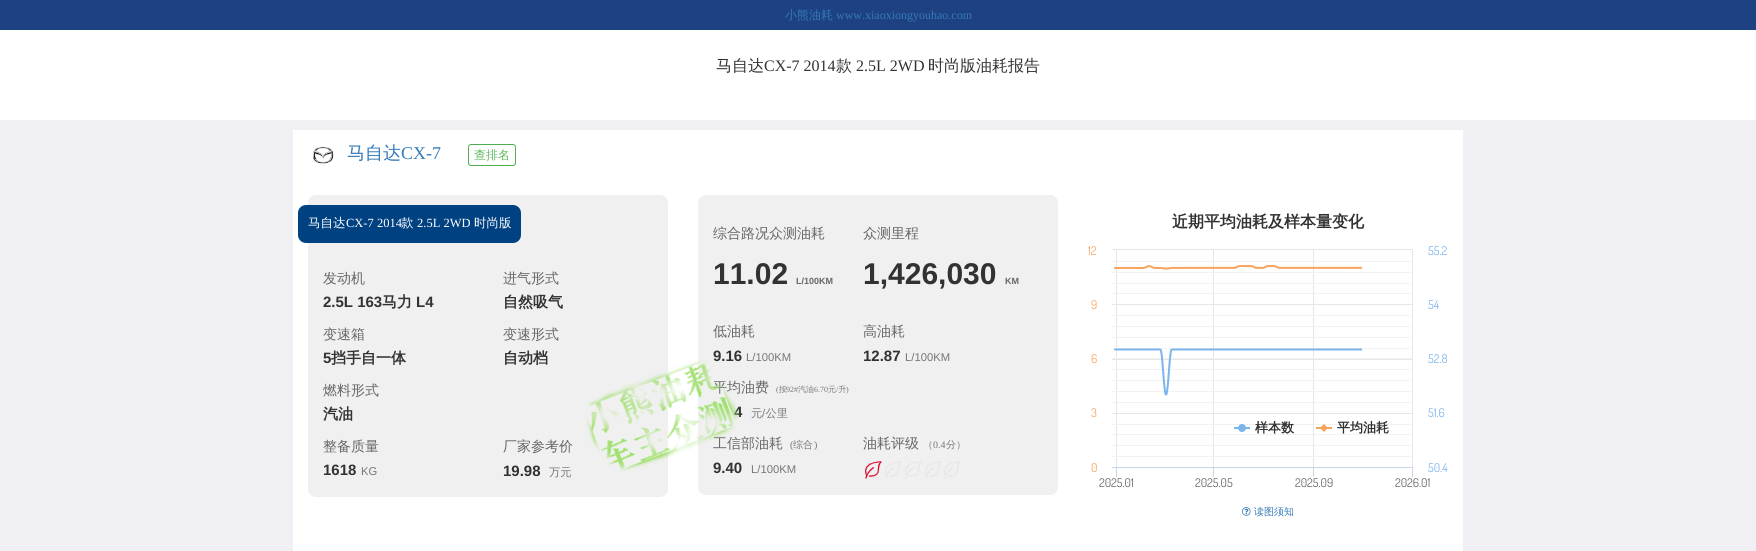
#include <cairo.h>
#include <math.h>
#include <stddef.h>

static cairo_t *ctx;

static void use_color(int r, int g, int b) {
    cairo_set_source_rgb(ctx, r / 255.0, g / 255.0, b / 255.0);
}

static void round_rect(double x, double y, double w, double h, double r) {
    cairo_new_sub_path(ctx);
    cairo_arc(ctx, x + w - r, y + h - r, r, 0, M_PI / 2);
    cairo_arc(ctx, x + r, y + h - r, r, M_PI / 2, M_PI);
    cairo_arc(ctx, x + r, y + r, r, M_PI, 1.5 * M_PI);
    cairo_arc(ctx, x + w - r, y + r, r, 1.5 * M_PI, 2 * M_PI);
    cairo_close_path(ctx);
}

static void picture(const char *path, double x, double y, double w, double h) {
    cairo_surface_t *image = cairo_image_surface_create_from_png(path);
    cairo_save(ctx);
    cairo_set_source_surface(ctx, image, x, y);
    cairo_rectangle(ctx, x, y, w, h);
    cairo_fill(ctx);
    cairo_restore(ctx);
    cairo_surface_destroy(image);
}

int main(void) {
    cairo_surface_t *surface = cairo_image_surface_create(CAIRO_FORMAT_RGB24, 1756, 551);
    ctx = cairo_create(surface);
    cairo_font_options_t *options = cairo_font_options_create();
    cairo_font_options_set_hint_metrics(options, CAIRO_HINT_METRICS_OFF);
    cairo_font_options_set_hint_style(options, CAIRO_HINT_STYLE_NONE);
    cairo_set_font_options(ctx, options);
    cairo_set_miter_limit(ctx, 4);
    use_color(240, 239, 244);
    cairo_paint(ctx);
    use_color(30, 65, 130);
    cairo_rectangle(ctx, 0, 0, 1756, 30);
    cairo_fill(ctx);
    cairo_select_font_face(ctx, "WenQuanYi Zen Hei Medium", CAIRO_FONT_SLANT_NORMAL, CAIRO_FONT_WEIGHT_NORMAL);
    cairo_set_font_size(ctx, 12);
    use_color(51, 122, 183);
    cairo_move_to(ctx, 785, 19);
    cairo_show_text(ctx, "小熊油耗");
    cairo_select_font_face(ctx, "Liberation Serif", CAIRO_FONT_SLANT_NORMAL, CAIRO_FONT_WEIGHT_NORMAL);
    cairo_move_to(ctx, 836, 19);
    cairo_show_text(ctx, "www.xiaoxiongyouhao.com");
    use_color(255, 255, 255);
    cairo_rectangle(ctx, 0, 30, 1756, 90);
    cairo_fill(ctx);
    cairo_select_font_face(ctx, "WenQuanYi Zen Hei Medium", CAIRO_FONT_SLANT_NORMAL, CAIRO_FONT_WEIGHT_NORMAL);
    cairo_set_font_size(ctx, 16);
    use_color(50, 50, 50);
    cairo_move_to(ctx, 716, 71);
    cairo_show_text(ctx, "马自达");
    cairo_select_font_face(ctx, "Liberation Serif", CAIRO_FONT_SLANT_NORMAL, CAIRO_FONT_WEIGHT_NORMAL);
    cairo_move_to(ctx, 764, 71);
    cairo_show_text(ctx, "CX-7 2014");
    cairo_select_font_face(ctx, "WenQuanYi Zen Hei Medium", CAIRO_FONT_SLANT_NORMAL, CAIRO_FONT_WEIGHT_NORMAL);
    cairo_move_to(ctx, 836, 71);
    cairo_show_text(ctx, "款");
    cairo_select_font_face(ctx, "Liberation Serif", CAIRO_FONT_SLANT_NORMAL, CAIRO_FONT_WEIGHT_NORMAL);
    cairo_move_to(ctx, 856, 71);
    cairo_show_text(ctx, "2.5L 2WD");
    cairo_select_font_face(ctx, "WenQuanYi Zen Hei Medium", CAIRO_FONT_SLANT_NORMAL, CAIRO_FONT_WEIGHT_NORMAL);
    cairo_move_to(ctx, 928, 71);
    cairo_show_text(ctx, "时尚版油耗报告");
    use_color(255, 255, 255);
    cairo_rectangle(ctx, 293, 130, 1170, 421);
    cairo_fill(ctx);
    picture("img1.png", 312, 146, 22, 18);
    cairo_set_font_size(ctx, 18);
    use_color(51, 122, 183);
    cairo_move_to(ctx, 347, 159);
    cairo_show_text(ctx, "马自达");
    cairo_select_font_face(ctx, "Liberation Serif", CAIRO_FONT_SLANT_NORMAL, CAIRO_FONT_WEIGHT_NORMAL);
    cairo_move_to(ctx, 401, 159);
    cairo_show_text(ctx, "CX-7");
    round_rect(468.5, 144.5, 47, 21, 2.5);
    use_color(76, 174, 76);
    cairo_set_line_width(ctx, 1);
    cairo_stroke(ctx);
    cairo_select_font_face(ctx, "WenQuanYi Zen Hei Medium", CAIRO_FONT_SLANT_NORMAL, CAIRO_FONT_WEIGHT_NORMAL);
    cairo_set_font_size(ctx, 12);
    use_color(92, 184, 92);
    cairo_move_to(ctx, 474, 159);
    cairo_show_text(ctx, "查排名");
    use_color(240, 240, 240);
    round_rect(308, 195, 360, 302, 8);
    cairo_fill(ctx);
    use_color(0, 65, 130);
    round_rect(298, 205, 223, 38, 8);
    cairo_fill(ctx);
    cairo_set_font_size(ctx, 12.5);
    use_color(255, 255, 255);
    cairo_move_to(ctx, 308, 227);
    cairo_show_text(ctx, "马自达");
    cairo_select_font_face(ctx, "Liberation Serif", CAIRO_FONT_SLANT_NORMAL, CAIRO_FONT_WEIGHT_NORMAL);
    cairo_move_to(ctx, 346, 227);
    cairo_show_text(ctx, "CX-7 2014");
    cairo_select_font_face(ctx, "WenQuanYi Zen Hei Medium", CAIRO_FONT_SLANT_NORMAL, CAIRO_FONT_WEIGHT_NORMAL);
    cairo_move_to(ctx, 401, 227);
    cairo_show_text(ctx, "款");
    cairo_select_font_face(ctx, "Liberation Serif", CAIRO_FONT_SLANT_NORMAL, CAIRO_FONT_WEIGHT_NORMAL);
    cairo_move_to(ctx, 417, 227);
    cairo_show_text(ctx, "2.5L 2WD");
    cairo_select_font_face(ctx, "WenQuanYi Zen Hei Medium", CAIRO_FONT_SLANT_NORMAL, CAIRO_FONT_WEIGHT_NORMAL);
    cairo_move_to(ctx, 474, 227);
    cairo_show_text(ctx, "时尚版");
    cairo_set_font_size(ctx, 14);
    use_color(102, 102, 102);
    cairo_move_to(ctx, 323, 283);
    cairo_show_text(ctx, "发动机");
    cairo_select_font_face(ctx, "Liberation Sans", CAIRO_FONT_SLANT_NORMAL, CAIRO_FONT_WEIGHT_BOLD);
    cairo_set_font_size(ctx, 15);
    use_color(50, 50, 50);
    cairo_move_to(ctx, 323, 307);
    cairo_show_text(ctx, "2.5L 163");
    cairo_select_font_face(ctx, "WenQuanYi Zen Hei", CAIRO_FONT_SLANT_NORMAL, CAIRO_FONT_WEIGHT_BOLD);
    cairo_move_to(ctx, 382, 307);
    cairo_show_text(ctx, "马力");
    cairo_select_font_face(ctx, "Liberation Sans", CAIRO_FONT_SLANT_NORMAL, CAIRO_FONT_WEIGHT_BOLD);
    cairo_move_to(ctx, 416, 307);
    cairo_show_text(ctx, "L4");
    cairo_select_font_face(ctx, "WenQuanYi Zen Hei Medium", CAIRO_FONT_SLANT_NORMAL, CAIRO_FONT_WEIGHT_NORMAL);
    cairo_set_font_size(ctx, 14);
    use_color(102, 102, 102);
    cairo_move_to(ctx, 503, 283);
    cairo_show_text(ctx, "进气形式");
    cairo_select_font_face(ctx, "WenQuanYi Zen Hei", CAIRO_FONT_SLANT_NORMAL, CAIRO_FONT_WEIGHT_BOLD);
    cairo_set_font_size(ctx, 15);
    use_color(50, 50, 50);
    cairo_move_to(ctx, 503, 307);
    cairo_show_text(ctx, "自然吸气");
    cairo_select_font_face(ctx, "WenQuanYi Zen Hei Medium", CAIRO_FONT_SLANT_NORMAL, CAIRO_FONT_WEIGHT_NORMAL);
    cairo_set_font_size(ctx, 14);
    use_color(102, 102, 102);
    cairo_move_to(ctx, 323, 339);
    cairo_show_text(ctx, "变速箱");
    cairo_select_font_face(ctx, "Liberation Sans", CAIRO_FONT_SLANT_NORMAL, CAIRO_FONT_WEIGHT_BOLD);
    cairo_set_font_size(ctx, 15);
    use_color(50, 50, 50);
    cairo_move_to(ctx, 323, 363);
    cairo_show_text(ctx, "5");
    cairo_select_font_face(ctx, "WenQuanYi Zen Hei", CAIRO_FONT_SLANT_NORMAL, CAIRO_FONT_WEIGHT_BOLD);
    cairo_move_to(ctx, 331, 363);
    cairo_show_text(ctx, "挡手自一体");
    cairo_select_font_face(ctx, "WenQuanYi Zen Hei Medium", CAIRO_FONT_SLANT_NORMAL, CAIRO_FONT_WEIGHT_NORMAL);
    cairo_set_font_size(ctx, 14);
    use_color(102, 102, 102);
    cairo_move_to(ctx, 503, 339);
    cairo_show_text(ctx, "变速形式");
    cairo_select_font_face(ctx, "WenQuanYi Zen Hei", CAIRO_FONT_SLANT_NORMAL, CAIRO_FONT_WEIGHT_BOLD);
    cairo_set_font_size(ctx, 15);
    use_color(50, 50, 50);
    cairo_move_to(ctx, 503, 363);
    cairo_show_text(ctx, "自动档");
    cairo_select_font_face(ctx, "WenQuanYi Zen Hei Medium", CAIRO_FONT_SLANT_NORMAL, CAIRO_FONT_WEIGHT_NORMAL);
    cairo_set_font_size(ctx, 14);
    use_color(102, 102, 102);
    cairo_move_to(ctx, 323, 395);
    cairo_show_text(ctx, "燃料形式");
    cairo_select_font_face(ctx, "WenQuanYi Zen Hei", CAIRO_FONT_SLANT_NORMAL, CAIRO_FONT_WEIGHT_BOLD);
    cairo_set_font_size(ctx, 15);
    use_color(50, 50, 50);
    cairo_move_to(ctx, 323, 419);
    cairo_show_text(ctx, "汽油");
    cairo_select_font_face(ctx, "WenQuanYi Zen Hei Medium", CAIRO_FONT_SLANT_NORMAL, CAIRO_FONT_WEIGHT_NORMAL);
    cairo_set_font_size(ctx, 14);
    use_color(102, 102, 102);
    cairo_move_to(ctx, 323, 451);
    cairo_show_text(ctx, "整备质量");
    cairo_select_font_face(ctx, "Liberation Sans", CAIRO_FONT_SLANT_NORMAL, CAIRO_FONT_WEIGHT_BOLD);
    cairo_set_font_size(ctx, 15);
    use_color(50, 50, 50);
    cairo_move_to(ctx, 323, 475);
    cairo_show_text(ctx, "1618");
    cairo_select_font_face(ctx, "Liberation Sans", CAIRO_FONT_SLANT_NORMAL, CAIRO_FONT_WEIGHT_NORMAL);
    cairo_set_font_size(ctx, 11.25);
    use_color(119, 119, 119);
    cairo_move_to(ctx, 361, 475);
    cairo_show_text(ctx, "KG");
    cairo_select_font_face(ctx, "WenQuanYi Zen Hei Medium", CAIRO_FONT_SLANT_NORMAL, CAIRO_FONT_WEIGHT_NORMAL);
    cairo_set_font_size(ctx, 14);
    use_color(102, 102, 102);
    cairo_move_to(ctx, 503, 451);
    cairo_show_text(ctx, "厂家参考价");
    cairo_select_font_face(ctx, "Liberation Sans", CAIRO_FONT_SLANT_NORMAL, CAIRO_FONT_WEIGHT_BOLD);
    cairo_set_font_size(ctx, 15);
    use_color(50, 50, 50);
    cairo_move_to(ctx, 503, 476);
    cairo_show_text(ctx, "19.98");
    cairo_select_font_face(ctx, "WenQuanYi Zen Hei Medium", CAIRO_FONT_SLANT_NORMAL, CAIRO_FONT_WEIGHT_NORMAL);
    cairo_set_font_size(ctx, 11.25);
    use_color(119, 119, 119);
    cairo_move_to(ctx, 549, 476);
    cairo_show_text(ctx, "万元");
    use_color(240, 240, 240);
    round_rect(698, 195, 360, 300, 8);
    cairo_fill(ctx);
    cairo_select_font_face(ctx, "Liberation Sans", CAIRO_FONT_SLANT_NORMAL, CAIRO_FONT_WEIGHT_BOLD);
    cairo_set_font_size(ctx, 15);
    use_color(50, 50, 50);
    cairo_move_to(ctx, 713, 361);
    cairo_show_text(ctx, "9.16");
    cairo_select_font_face(ctx, "WenQuanYi Zen Hei Medium", CAIRO_FONT_SLANT_NORMAL, CAIRO_FONT_WEIGHT_NORMAL);
    cairo_set_font_size(ctx, 14);
    use_color(102, 102, 102);
    cairo_move_to(ctx, 713, 392);
    cairo_show_text(ctx, "平均油费");
    cairo_select_font_face(ctx, "Liberation Sans", CAIRO_FONT_SLANT_NORMAL, CAIRO_FONT_WEIGHT_BOLD);
    cairo_set_font_size(ctx, 15);
    use_color(50, 50, 50);
    cairo_move_to(ctx, 734, 417);
    cairo_show_text(ctx, "4");
    cairo_select_font_face(ctx, "WenQuanYi Zen Hei Medium", CAIRO_FONT_SLANT_NORMAL, CAIRO_FONT_WEIGHT_NORMAL);
    cairo_set_font_size(ctx, 14);
    use_color(102, 102, 102);
    cairo_move_to(ctx, 713, 448);
    cairo_show_text(ctx, "工信部油耗");
    cairo_select_font_face(ctx, "Liberation Sans", CAIRO_FONT_SLANT_NORMAL, CAIRO_FONT_WEIGHT_BOLD);
    cairo_set_font_size(ctx, 15);
    use_color(50, 50, 50);
    cairo_move_to(ctx, 713, 473);
    cairo_show_text(ctx, "9.40");
    picture("img2.png", 586, 360, 154, 112);
    cairo_select_font_face(ctx, "WenQuanYi Zen Hei Medium", CAIRO_FONT_SLANT_NORMAL, CAIRO_FONT_WEIGHT_NORMAL);
    cairo_set_font_size(ctx, 14);
    use_color(102, 102, 102);
    cairo_move_to(ctx, 713, 238);
    cairo_show_text(ctx, "综合路况众测油耗");
    cairo_select_font_face(ctx, "Liberation Sans", CAIRO_FONT_SLANT_NORMAL, CAIRO_FONT_WEIGHT_BOLD);
    cairo_set_font_size(ctx, 30);
    use_color(50, 50, 50);
    cairo_move_to(ctx, 713, 284);
    cairo_show_text(ctx, "11.02");
    cairo_set_font_size(ctx, 9);
    use_color(102, 102, 102);
    cairo_move_to(ctx, 796, 284);
    cairo_show_text(ctx, "L/100KM");
    cairo_select_font_face(ctx, "WenQuanYi Zen Hei Medium", CAIRO_FONT_SLANT_NORMAL, CAIRO_FONT_WEIGHT_NORMAL);
    cairo_set_font_size(ctx, 14);
    cairo_move_to(ctx, 863, 238);
    cairo_show_text(ctx, "众测里程");
    cairo_select_font_face(ctx, "Liberation Sans", CAIRO_FONT_SLANT_NORMAL, CAIRO_FONT_WEIGHT_BOLD);
    cairo_set_font_size(ctx, 30);
    use_color(50, 50, 50);
    cairo_move_to(ctx, 863, 284);
    cairo_show_text(ctx, "1,426,030");
    cairo_set_font_size(ctx, 9);
    use_color(102, 102, 102);
    cairo_move_to(ctx, 1005, 284);
    cairo_show_text(ctx, "KM");
    cairo_select_font_face(ctx, "WenQuanYi Zen Hei Medium", CAIRO_FONT_SLANT_NORMAL, CAIRO_FONT_WEIGHT_NORMAL);
    cairo_set_font_size(ctx, 14);
    cairo_move_to(ctx, 713, 336);
    cairo_show_text(ctx, "低油耗");
    cairo_select_font_face(ctx, "Liberation Sans", CAIRO_FONT_SLANT_NORMAL, CAIRO_FONT_WEIGHT_NORMAL);
    cairo_set_font_size(ctx, 11.25);
    use_color(119, 119, 119);
    cairo_move_to(ctx, 746, 361);
    cairo_show_text(ctx, "L/100KM");
    cairo_select_font_face(ctx, "WenQuanYi Zen Hei Medium", CAIRO_FONT_SLANT_NORMAL, CAIRO_FONT_WEIGHT_NORMAL);
    cairo_set_font_size(ctx, 14);
    use_color(102, 102, 102);
    cairo_move_to(ctx, 863, 336);
    cairo_show_text(ctx, "高油耗");
    cairo_select_font_face(ctx, "Liberation Sans", CAIRO_FONT_SLANT_NORMAL, CAIRO_FONT_WEIGHT_BOLD);
    cairo_set_font_size(ctx, 15);
    use_color(50, 50, 50);
    cairo_move_to(ctx, 863, 361);
    cairo_show_text(ctx, "12.87");
    cairo_select_font_face(ctx, "Liberation Sans", CAIRO_FONT_SLANT_NORMAL, CAIRO_FONT_WEIGHT_NORMAL);
    cairo_set_font_size(ctx, 11.25);
    use_color(119, 119, 119);
    cairo_move_to(ctx, 905, 361);
    cairo_show_text(ctx, "L/100KM");
    cairo_select_font_face(ctx, "Liberation Serif", CAIRO_FONT_SLANT_NORMAL, CAIRO_FONT_WEIGHT_NORMAL);
    cairo_set_font_size(ctx, 8);
    cairo_move_to(ctx, 776, 392);
    cairo_show_text(ctx, "(");
    cairo_select_font_face(ctx, "WenQuanYi Zen Hei Medium", CAIRO_FONT_SLANT_NORMAL, CAIRO_FONT_WEIGHT_NORMAL);
    cairo_move_to(ctx, 779, 392);
    cairo_show_text(ctx, "按");
    cairo_select_font_face(ctx, "Liberation Serif", CAIRO_FONT_SLANT_NORMAL, CAIRO_FONT_WEIGHT_NORMAL);
    cairo_move_to(ctx, 786, 392);
    cairo_show_text(ctx, "92#");
    cairo_select_font_face(ctx, "WenQuanYi Zen Hei Medium", CAIRO_FONT_SLANT_NORMAL, CAIRO_FONT_WEIGHT_NORMAL);
    cairo_move_to(ctx, 798, 392);
    cairo_show_text(ctx, "汽油");
    cairo_select_font_face(ctx, "Liberation Serif", CAIRO_FONT_SLANT_NORMAL, CAIRO_FONT_WEIGHT_NORMAL);
    cairo_move_to(ctx, 814, 392);
    cairo_show_text(ctx, "6.70");
    cairo_select_font_face(ctx, "WenQuanYi Zen Hei Medium", CAIRO_FONT_SLANT_NORMAL, CAIRO_FONT_WEIGHT_NORMAL);
    cairo_move_to(ctx, 828, 392);
    cairo_show_text(ctx, "元 升");
    cairo_select_font_face(ctx, "Liberation Serif", CAIRO_FONT_SLANT_NORMAL, CAIRO_FONT_WEIGHT_NORMAL);
    cairo_move_to(ctx, 836, 392);
    cairo_show_text(ctx, "/");
    cairo_move_to(ctx, 846, 392);
    cairo_show_text(ctx, ")");
    cairo_select_font_face(ctx, "WenQuanYi Zen Hei Medium", CAIRO_FONT_SLANT_NORMAL, CAIRO_FONT_WEIGHT_NORMAL);
    cairo_set_font_size(ctx, 11.25);
    cairo_move_to(ctx, 751, 417);
    cairo_show_text(ctx, "元 公里");
    cairo_select_font_face(ctx, "Liberation Sans", CAIRO_FONT_SLANT_NORMAL, CAIRO_FONT_WEIGHT_NORMAL);
    cairo_move_to(ctx, 762, 417);
    cairo_show_text(ctx, "/");
    cairo_select_font_face(ctx, "Liberation Serif", CAIRO_FONT_SLANT_NORMAL, CAIRO_FONT_WEIGHT_NORMAL);
    cairo_set_font_size(ctx, 10);
    cairo_move_to(ctx, 790, 448);
    cairo_show_text(ctx, "(");
    cairo_select_font_face(ctx, "WenQuanYi Zen Hei Medium", CAIRO_FONT_SLANT_NORMAL, CAIRO_FONT_WEIGHT_NORMAL);
    cairo_move_to(ctx, 793, 448);
    cairo_show_text(ctx, "综合");
    cairo_select_font_face(ctx, "Liberation Serif", CAIRO_FONT_SLANT_NORMAL, CAIRO_FONT_WEIGHT_NORMAL);
    cairo_move_to(ctx, 814, 448);
    cairo_show_text(ctx, ")");
    cairo_select_font_face(ctx, "Liberation Sans", CAIRO_FONT_SLANT_NORMAL, CAIRO_FONT_WEIGHT_NORMAL);
    cairo_set_font_size(ctx, 11.25);
    cairo_move_to(ctx, 751, 473);
    cairo_show_text(ctx, "L/100KM");
    cairo_select_font_face(ctx, "WenQuanYi Zen Hei Medium", CAIRO_FONT_SLANT_NORMAL, CAIRO_FONT_WEIGHT_NORMAL);
    cairo_set_font_size(ctx, 14);
    use_color(102, 102, 102);
    cairo_move_to(ctx, 863, 448);
    cairo_show_text(ctx, "油耗评级");
    cairo_set_font_size(ctx, 10);
    use_color(119, 119, 119);
    cairo_move_to(ctx, 923, 448);
    cairo_show_text(ctx, "（");
    cairo_select_font_face(ctx, "Liberation Serif", CAIRO_FONT_SLANT_NORMAL, CAIRO_FONT_WEIGHT_NORMAL);
    cairo_move_to(ctx, 933, 448);
    cairo_show_text(ctx, "0.4");
    cairo_select_font_face(ctx, "WenQuanYi Zen Hei Medium", CAIRO_FONT_SLANT_NORMAL, CAIRO_FONT_WEIGHT_NORMAL);
    cairo_move_to(ctx, 946, 448);
    cairo_show_text(ctx, "分）");
    picture("img3.png", 865, 461, 95, 18);
    cairo_select_font_face(ctx, "WenQuanYi Zen Hei", CAIRO_FONT_SLANT_NORMAL, CAIRO_FONT_WEIGHT_BOLD);
    cairo_set_font_size(ctx, 16);
    use_color(50, 50, 50);
    cairo_move_to(ctx, 1172, 227);
    cairo_show_text(ctx, "近期平均油耗及样本量变化");
    cairo_select_font_face(ctx, "Dosis", CAIRO_FONT_SLANT_NORMAL, CAIRO_FONT_WEIGHT_NORMAL);
    cairo_set_font_size(ctx, 12);
    use_color(247, 163, 92);
    cairo_move_to(ctx, 1088, 255);
    cairo_show_text(ctx, "12");
    picture("img4.png", 1112, 249, 301, 228);
    use_color(124, 181, 236);
    cairo_move_to(ctx, 1428, 255);
    cairo_show_text(ctx, "55.2");
    use_color(247, 163, 92);
    cairo_move_to(ctx, 1091, 309);
    cairo_show_text(ctx, "9");
    use_color(124, 181, 236);
    cairo_move_to(ctx, 1428, 309);
    cairo_show_text(ctx, "54");
    use_color(247, 163, 92);
    cairo_move_to(ctx, 1091, 363);
    cairo_show_text(ctx, "6");
    use_color(124, 181, 236);
    cairo_move_to(ctx, 1428, 363);
    cairo_show_text(ctx, "52.8");
    use_color(247, 163, 92);
    cairo_move_to(ctx, 1091, 417);
    cairo_show_text(ctx, "3");
    use_color(124, 181, 236);
    cairo_move_to(ctx, 1428, 417);
    cairo_show_text(ctx, "51.6");
    cairo_select_font_face(ctx, "WenQuanYi Zen Hei", CAIRO_FONT_SLANT_NORMAL, CAIRO_FONT_WEIGHT_BOLD);
    cairo_set_font_size(ctx, 13);
    use_color(50, 50, 50);
    cairo_move_to(ctx, 1255, 432);
    cairo_show_text(ctx, "样本数");
    cairo_move_to(ctx, 1337, 432);
    cairo_show_text(ctx, "平均油耗");
    cairo_select_font_face(ctx, "Dosis", CAIRO_FONT_SLANT_NORMAL, CAIRO_FONT_WEIGHT_NORMAL);
    cairo_set_font_size(ctx, 12);
    use_color(247, 163, 92);
    cairo_move_to(ctx, 1091, 472);
    cairo_show_text(ctx, "0");
    use_color(124, 181, 236);
    cairo_move_to(ctx, 1428, 472);
    cairo_show_text(ctx, "50.4");
    use_color(102, 102, 102);
    cairo_move_to(ctx, 1099, 487);
    cairo_show_text(ctx, "2025.01");
    cairo_move_to(ctx, 1195, 487);
    cairo_show_text(ctx, "2025.05");
    cairo_move_to(ctx, 1295, 487);
    cairo_show_text(ctx, "2025.09");
    cairo_move_to(ctx, 1395, 487);
    cairo_show_text(ctx, "2026.01");
    picture("img5.png", 1242, 507, 9, 9);
    cairo_select_font_face(ctx, "WenQuanYi Zen Hei Medium", CAIRO_FONT_SLANT_NORMAL, CAIRO_FONT_WEIGHT_NORMAL);
    cairo_set_font_size(ctx, 10);
    use_color(51, 122, 183);
    cairo_move_to(ctx, 1254, 515);
    cairo_show_text(ctx, "读图须知");
    cairo_surface_write_to_png(surface, "result.png");
    cairo_font_options_destroy(options);
    cairo_destroy(ctx);
    cairo_surface_destroy(surface);
    return 0;
}
